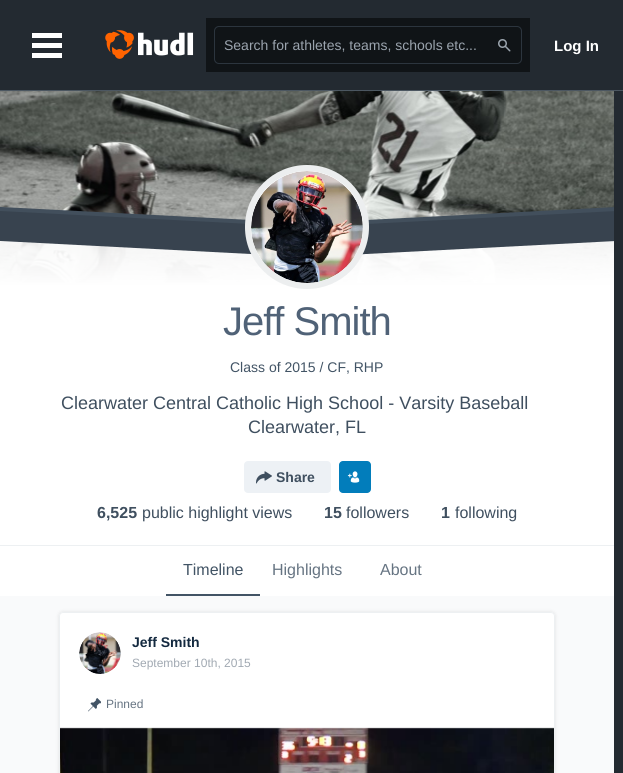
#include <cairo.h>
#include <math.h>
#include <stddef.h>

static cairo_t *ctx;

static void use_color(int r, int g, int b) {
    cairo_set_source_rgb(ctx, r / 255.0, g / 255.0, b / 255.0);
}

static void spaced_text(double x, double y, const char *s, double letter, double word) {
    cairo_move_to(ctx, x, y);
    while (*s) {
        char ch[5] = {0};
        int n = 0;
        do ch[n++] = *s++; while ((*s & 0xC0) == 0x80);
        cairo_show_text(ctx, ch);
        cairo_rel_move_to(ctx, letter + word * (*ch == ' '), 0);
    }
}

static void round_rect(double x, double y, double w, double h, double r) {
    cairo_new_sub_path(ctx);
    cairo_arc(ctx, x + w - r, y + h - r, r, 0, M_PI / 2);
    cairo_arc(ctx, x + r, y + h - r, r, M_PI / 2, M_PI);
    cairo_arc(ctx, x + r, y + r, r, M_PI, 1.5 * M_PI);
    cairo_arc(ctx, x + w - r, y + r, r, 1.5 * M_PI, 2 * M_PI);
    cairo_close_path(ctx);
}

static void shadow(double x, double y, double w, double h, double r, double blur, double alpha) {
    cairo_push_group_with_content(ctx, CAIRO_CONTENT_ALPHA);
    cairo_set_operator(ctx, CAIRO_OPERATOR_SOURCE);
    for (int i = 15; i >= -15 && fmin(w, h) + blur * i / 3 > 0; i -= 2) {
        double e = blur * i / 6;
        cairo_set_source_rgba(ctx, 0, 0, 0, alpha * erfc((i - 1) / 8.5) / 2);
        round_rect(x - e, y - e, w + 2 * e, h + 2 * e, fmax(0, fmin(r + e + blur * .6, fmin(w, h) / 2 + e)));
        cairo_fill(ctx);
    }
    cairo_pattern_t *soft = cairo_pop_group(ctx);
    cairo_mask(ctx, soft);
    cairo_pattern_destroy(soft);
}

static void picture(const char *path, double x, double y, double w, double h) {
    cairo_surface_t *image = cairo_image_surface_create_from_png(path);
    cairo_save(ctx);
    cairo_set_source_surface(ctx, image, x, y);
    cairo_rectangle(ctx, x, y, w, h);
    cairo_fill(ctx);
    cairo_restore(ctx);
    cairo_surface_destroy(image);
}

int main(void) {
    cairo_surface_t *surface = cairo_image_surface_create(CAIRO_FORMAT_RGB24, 623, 773);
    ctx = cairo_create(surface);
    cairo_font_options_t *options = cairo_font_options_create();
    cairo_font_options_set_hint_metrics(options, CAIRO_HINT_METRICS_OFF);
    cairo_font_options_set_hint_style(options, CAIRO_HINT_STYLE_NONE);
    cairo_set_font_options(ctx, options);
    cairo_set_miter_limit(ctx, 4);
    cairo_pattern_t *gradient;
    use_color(35, 42, 49);
    cairo_paint(ctx);
    use_color(76, 87, 97);
    cairo_rectangle(ctx, 0, 90, 623, 1);
    cairo_fill(ctx);
    use_color(255, 255, 255);
    cairo_rectangle(ctx, 32, 33, 30, 5);
    cairo_fill(ctx);
    cairo_rectangle(ctx, 32, 43, 30, 5);
    cairo_fill(ctx);
    cairo_rectangle(ctx, 32, 53, 30, 5);
    cairo_fill(ctx);
    picture("img1.png", 105, 30, 89, 29);
    use_color(16, 20, 23);
    cairo_rectangle(ctx, 206, 18, 324, 54);
    cairo_fill(ctx);
    round_rect(214.5, 26.5, 307, 37, 4.5);
    use_color(44, 53, 62);
    cairo_set_line_width(ctx, 1);
    cairo_stroke(ctx);
    cairo_select_font_face(ctx, "Liberation Sans", CAIRO_FONT_SLANT_NORMAL, CAIRO_FONT_WEIGHT_NORMAL);
    cairo_set_font_size(ctx, 14);
    use_color(155, 164, 174);
    cairo_move_to(ctx, 224, 50);
    cairo_show_text(ctx, "Search for athletes, teams, schools etc...");
    picture("img2.png", 498, 39, 13, 13);
    cairo_select_font_face(ctx, "Liberation Sans", CAIRO_FONT_SLANT_NORMAL, CAIRO_FONT_WEIGHT_BOLD);
    cairo_set_font_size(ctx, 15);
    use_color(255, 255, 255);
    cairo_move_to(ctx, 554, 51);
    cairo_show_text(ctx, "Log In");
    picture("img3.png", 0, 91, 614, 192);
    gradient = cairo_pattern_create_linear(307, 221, 307, 545);
    cairo_pattern_add_color_stop_rgba(gradient, 0, 1, 1, 1, 0.85);
    cairo_pattern_add_color_stop_rgba(gradient, 0.2, 1, 1, 1, 1);
    cairo_set_source(ctx, gradient);
    cairo_pattern_destroy(gradient);
    cairo_rectangle(ctx, 0, 240, 614, 305);
    cairo_fill(ctx);
    use_color(237, 240, 242);
    cairo_rectangle(ctx, 0, 545, 614, 1);
    cairo_fill(ctx);
    cairo_save(ctx);
    cairo_rectangle(ctx, 0, 203, 614, 50);
    cairo_clip(ctx);
    use_color(66, 79, 92);
    cairo_set_fill_rule(ctx, CAIRO_FILL_RULE_EVEN_ODD);
    cairo_new_path(ctx);
    cairo_move_to(ctx, -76, 203);
    cairo_line_to(ctx, 308, 223);
    cairo_line_to(ctx, 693, 203);
    cairo_line_to(ctx, 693, 233);
    cairo_line_to(ctx, 308, 253);
    cairo_line_to(ctx, -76, 233);
    cairo_close_path(ctx);
    cairo_fill(ctx);
    cairo_restore(ctx);
    cairo_save(ctx);
    cairo_rectangle(ctx, 0, 207, 614, 50);
    cairo_clip(ctx);
    use_color(56, 67, 79);
    cairo_set_fill_rule(ctx, CAIRO_FILL_RULE_EVEN_ODD);
    cairo_new_path(ctx);
    cairo_move_to(ctx, -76, 207);
    cairo_line_to(ctx, 308, 227);
    cairo_line_to(ctx, 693, 207);
    cairo_line_to(ctx, 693, 237);
    cairo_line_to(ctx, 308, 257);
    cairo_line_to(ctx, -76, 237);
    cairo_close_path(ctx);
    cairo_fill(ctx);
    cairo_restore(ctx);
    use_color(255, 255, 255);
    cairo_arc(ctx, 307, 227, 62, 0, 2 * M_PI);
    cairo_fill(ctx);
    cairo_arc(ctx, 307, 227, 59, 0, 2 * M_PI);
    cairo_set_source_rgba(ctx, 0.271, 0.322, 0.369, 0.1);
    cairo_set_line_width(ctx, 6);
    cairo_stroke(ctx);
    picture("img4.png", 251, 171, 112, 112);
    cairo_select_font_face(ctx, "Liberation Sans", CAIRO_FONT_SLANT_NORMAL, CAIRO_FONT_WEIGHT_NORMAL);
    cairo_set_font_size(ctx, 40);
    use_color(80, 98, 119);
    spaced_text(223, 335, "Jeff Smith", -1, 0);
    cairo_set_font_size(ctx, 14);
    use_color(66, 84, 101);
    cairo_move_to(ctx, 230, 372);
    cairo_show_text(ctx, "Class of 2015 / CF, RHP");
    cairo_set_font_size(ctx, 18);
    use_color(63, 79, 95);
    cairo_move_to(ctx, 61, 409);
    cairo_show_text(ctx, "Clearwater Central Catholic High School - Varsity Baseball");
    cairo_move_to(ctx, 248, 433);
    cairo_show_text(ctx, "Clearwater, FL");
    use_color(237, 241, 245);
    round_rect(244, 461, 87, 32, 4);
    cairo_fill(ctx);
    picture("img5.png", 256, 471, 16, 13);
    cairo_select_font_face(ctx, "Liberation Sans", CAIRO_FONT_SLANT_NORMAL, CAIRO_FONT_WEIGHT_BOLD);
    cairo_set_font_size(ctx, 14);
    use_color(63, 79, 95);
    cairo_move_to(ctx, 276, 482);
    cairo_show_text(ctx, "Share");
    use_color(2, 125, 187);
    round_rect(339, 461, 32, 32, 4);
    cairo_fill(ctx);
    picture("img6.png", 347, 471, 13, 12);
    cairo_set_font_size(ctx, 16);
    use_color(63, 79, 95);
    cairo_move_to(ctx, 97, 518);
    cairo_show_text(ctx, "6,525");
    cairo_select_font_face(ctx, "Liberation Sans", CAIRO_FONT_SLANT_NORMAL, CAIRO_FONT_WEIGHT_NORMAL);
    cairo_move_to(ctx, 142, 518);
    cairo_show_text(ctx, "public highlight views");
    cairo_select_font_face(ctx, "Liberation Sans", CAIRO_FONT_SLANT_NORMAL, CAIRO_FONT_WEIGHT_BOLD);
    cairo_move_to(ctx, 324, 518);
    cairo_show_text(ctx, "15");
    cairo_select_font_face(ctx, "Liberation Sans", CAIRO_FONT_SLANT_NORMAL, CAIRO_FONT_WEIGHT_NORMAL);
    cairo_move_to(ctx, 346, 518);
    cairo_show_text(ctx, "followers");
    cairo_select_font_face(ctx, "Liberation Sans", CAIRO_FONT_SLANT_NORMAL, CAIRO_FONT_WEIGHT_BOLD);
    cairo_move_to(ctx, 441, 518);
    cairo_show_text(ctx, "1");
    cairo_select_font_face(ctx, "Liberation Sans", CAIRO_FONT_SLANT_NORMAL, CAIRO_FONT_WEIGHT_NORMAL);
    cairo_move_to(ctx, 455, 518);
    cairo_show_text(ctx, "following");
    use_color(255, 255, 255);
    cairo_rectangle(ctx, 0, 546, 614, 50);
    cairo_fill(ctx);
    use_color(66, 84, 101);
    cairo_rectangle(ctx, 166, 594, 94, 2);
    cairo_fill(ctx);
    cairo_move_to(ctx, 183, 575);
    cairo_show_text(ctx, "Timeline");
    use_color(102, 116, 130);
    cairo_move_to(ctx, 272, 575);
    cairo_show_text(ctx, "Highlights");
    cairo_move_to(ctx, 380, 575);
    cairo_show_text(ctx, "About");
    use_color(249, 250, 251);
    cairo_rectangle(ctx, 0, 596, 614, 177);
    cairo_fill(ctx);
    use_color(0, 0, 0);
    shadow(59, 612, 496, 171, 4, 2, 0.1);
    use_color(255, 255, 255);
    cairo_new_path(ctx);
    cairo_move_to(ctx, 63, 612);
    cairo_line_to(ctx, 551, 612);
    cairo_curve_to(ctx, 553, 612, 555, 614, 555, 616);
    cairo_line_to(ctx, 555, 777);
    cairo_line_to(ctx, 59, 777);
    cairo_line_to(ctx, 59, 616);
    cairo_curve_to(ctx, 59, 614, 61, 612, 63, 612);
    cairo_close_path(ctx);
    cairo_fill(ctx);
    round_rect(59.5, 612.5, 495, 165, 3.5);
    use_color(237, 240, 242);
    cairo_set_line_width(ctx, 1);
    cairo_stroke(ctx);
    picture("img7.png", 79, 632, 42, 42);
    cairo_select_font_face(ctx, "Liberation Sans", CAIRO_FONT_SLANT_NORMAL, CAIRO_FONT_WEIGHT_BOLD);
    cairo_set_font_size(ctx, 14);
    use_color(19, 41, 63);
    cairo_move_to(ctx, 132, 647);
    cairo_show_text(ctx, "Jeff Smith");
    cairo_select_font_face(ctx, "Liberation Sans", CAIRO_FONT_SLANT_NORMAL, CAIRO_FONT_WEIGHT_NORMAL);
    cairo_set_font_size(ctx, 12);
    use_color(161, 169, 178);
    cairo_move_to(ctx, 132, 667);
    cairo_show_text(ctx, "September 10th, 2015");
    picture("img8.png", 88, 698, 13, 14);
    use_color(102, 116, 130);
    cairo_move_to(ctx, 106, 708);
    cairo_show_text(ctx, "Pinned");
    picture("img9.png", 60, 727, 494, 46);
    cairo_surface_write_to_png(surface, "result.png");
    cairo_font_options_destroy(options);
    cairo_destroy(ctx);
    cairo_surface_destroy(surface);
    return 0;
}
